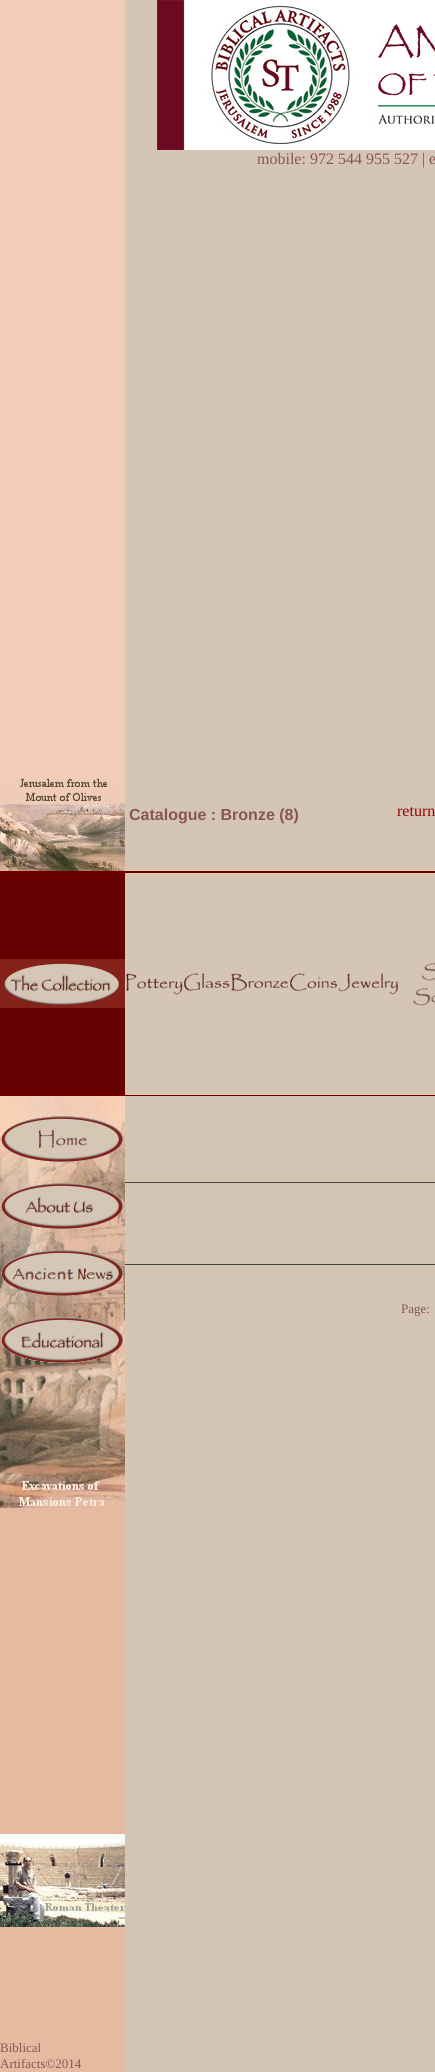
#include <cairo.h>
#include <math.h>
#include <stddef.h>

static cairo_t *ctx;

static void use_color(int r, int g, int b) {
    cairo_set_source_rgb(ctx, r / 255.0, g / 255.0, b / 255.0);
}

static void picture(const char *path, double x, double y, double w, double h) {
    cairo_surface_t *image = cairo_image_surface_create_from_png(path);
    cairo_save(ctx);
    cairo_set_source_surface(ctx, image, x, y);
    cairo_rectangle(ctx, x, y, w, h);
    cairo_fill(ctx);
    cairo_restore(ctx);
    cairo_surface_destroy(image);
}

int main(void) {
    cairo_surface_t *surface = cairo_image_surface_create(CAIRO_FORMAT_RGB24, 435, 2072);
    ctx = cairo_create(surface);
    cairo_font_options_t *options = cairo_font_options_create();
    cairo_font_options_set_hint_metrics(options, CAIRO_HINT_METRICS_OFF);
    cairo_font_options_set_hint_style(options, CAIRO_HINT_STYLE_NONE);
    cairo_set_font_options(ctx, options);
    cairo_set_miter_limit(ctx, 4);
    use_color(213, 197, 181);
    cairo_paint(ctx);
    use_color(241, 205, 183);
    cairo_rectangle(ctx, 0, 0, 125, 778);
    cairo_fill(ctx);
    picture("img1.png", 0, 778, 125, 93);
    picture("img2.png", 157, 0, 278, 150);
    cairo_select_font_face(ctx, "Liberation Serif", CAIRO_FONT_SLANT_NORMAL, CAIRO_FONT_WEIGHT_NORMAL);
    cairo_set_font_size(ctx, 16);
    use_color(136, 85, 85);
    cairo_move_to(ctx, 257, 164);
    cairo_show_text(ctx, "mobile: 972 544 955 527 | e");
    cairo_select_font_face(ctx, "Liberation Sans", CAIRO_FONT_SLANT_NORMAL, CAIRO_FONT_WEIGHT_BOLD);
    cairo_move_to(ctx, 129, 820);
    cairo_show_text(ctx, "Catalogue : Bronze (8)");
    cairo_select_font_face(ctx, "Liberation Serif", CAIRO_FONT_SLANT_NORMAL, CAIRO_FONT_WEIGHT_NORMAL);
    use_color(153, 0, 0);
    cairo_move_to(ctx, 397, 816);
    cairo_show_text(ctx, "return");
    use_color(112, 0, 0);
    cairo_rectangle(ctx, 0, 871, 435, 2);
    cairo_fill(ctx);
    use_color(102, 0, 0);
    cairo_rectangle(ctx, 0, 873, 125, 222);
    cairo_fill(ctx);
    picture("img3.png", 0, 959, 125, 49);
    picture("img4.png", 126, 973, 57, 22);
    picture("img5.png", 184, 973, 46, 18);
    picture("img6.png", 231, 973, 57, 18);
    picture("img7.png", 290, 973, 47, 18);
    picture("img8.png", 338, 973, 60, 22);
    picture("img9.png", 413, 963, 22, 43);
    use_color(112, 0, 0);
    cairo_rectangle(ctx, 0, 1095, 435, 1);
    cairo_fill(ctx);
    picture("img10.png", 0, 1096, 125, 412);
    picture("img11.png", 1, 1116, 122, 46);
    picture("img12.png", 1, 1183, 122, 46);
    picture("img13.png", 1, 1250, 122, 46);
    picture("img14.png", 1, 1317, 122, 46);
    use_color(68, 68, 68);
    cairo_rectangle(ctx, 125, 1182, 310, 1);
    cairo_fill(ctx);
    cairo_rectangle(ctx, 125, 1264, 310, 1);
    cairo_fill(ctx);
    cairo_set_font_size(ctx, 13);
    use_color(136, 85, 85);
    cairo_move_to(ctx, 401, 1313);
    cairo_show_text(ctx, "Page:");
    use_color(230, 186, 161);
    cairo_rectangle(ctx, 0, 1508, 125, 326);
    cairo_fill(ctx);
    picture("img15.png", 0, 1834, 125, 93);
    cairo_rectangle(ctx, 0, 1927, 125, 145);
    cairo_fill(ctx);
    use_color(136, 85, 85);
    cairo_move_to(ctx, 0, 2052);
    cairo_show_text(ctx, "Biblical");
    cairo_move_to(ctx, 0, 2068);
    cairo_show_text(ctx, "Artifacts©2014");
    cairo_surface_write_to_png(surface, "result.png");
    cairo_font_options_destroy(options);
    cairo_destroy(ctx);
    cairo_surface_destroy(surface);
    return 0;
}
